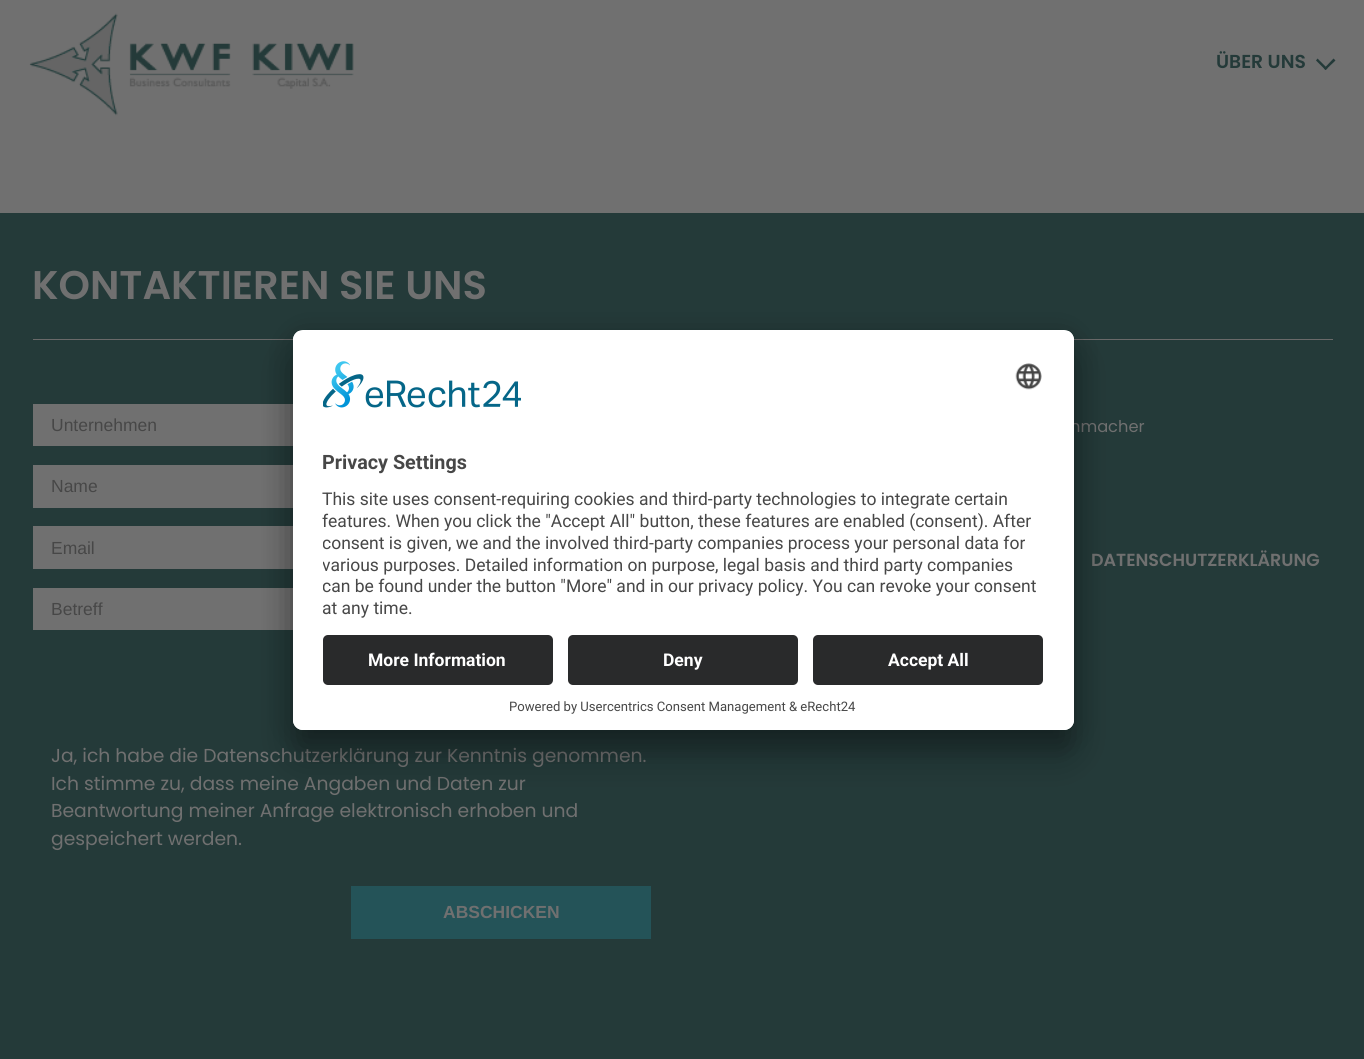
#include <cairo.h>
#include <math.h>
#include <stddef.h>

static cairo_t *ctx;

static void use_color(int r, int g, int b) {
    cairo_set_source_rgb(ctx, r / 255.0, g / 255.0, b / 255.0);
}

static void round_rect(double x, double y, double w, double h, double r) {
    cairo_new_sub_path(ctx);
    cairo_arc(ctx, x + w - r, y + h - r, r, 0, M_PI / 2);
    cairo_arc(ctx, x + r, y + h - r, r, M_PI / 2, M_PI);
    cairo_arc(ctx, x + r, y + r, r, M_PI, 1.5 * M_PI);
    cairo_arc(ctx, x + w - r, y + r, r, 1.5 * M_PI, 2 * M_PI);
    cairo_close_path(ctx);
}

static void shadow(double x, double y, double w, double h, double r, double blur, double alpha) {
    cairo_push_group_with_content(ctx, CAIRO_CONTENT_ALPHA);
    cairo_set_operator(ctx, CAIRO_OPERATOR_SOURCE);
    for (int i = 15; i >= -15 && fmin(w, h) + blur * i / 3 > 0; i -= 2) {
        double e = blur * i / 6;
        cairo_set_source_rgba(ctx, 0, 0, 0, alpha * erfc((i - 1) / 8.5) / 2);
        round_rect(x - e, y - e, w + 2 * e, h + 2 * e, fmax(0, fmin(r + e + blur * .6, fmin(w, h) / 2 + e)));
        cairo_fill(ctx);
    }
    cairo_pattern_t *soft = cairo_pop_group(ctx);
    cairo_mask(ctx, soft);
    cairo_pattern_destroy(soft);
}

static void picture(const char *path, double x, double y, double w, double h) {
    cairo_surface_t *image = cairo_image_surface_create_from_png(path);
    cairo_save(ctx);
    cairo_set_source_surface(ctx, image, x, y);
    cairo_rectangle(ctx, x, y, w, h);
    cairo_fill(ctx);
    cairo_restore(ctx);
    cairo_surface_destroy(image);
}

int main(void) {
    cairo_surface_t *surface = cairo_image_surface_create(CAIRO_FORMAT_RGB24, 1364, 1059);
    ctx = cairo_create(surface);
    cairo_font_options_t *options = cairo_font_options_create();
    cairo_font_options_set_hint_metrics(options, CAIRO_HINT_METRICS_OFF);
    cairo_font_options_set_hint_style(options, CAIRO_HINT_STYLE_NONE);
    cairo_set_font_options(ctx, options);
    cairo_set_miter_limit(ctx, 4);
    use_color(112, 112, 112);
    cairo_paint(ctx);
    picture("img1.png", 29, 13, 325, 103);
    cairo_select_font_face(ctx, "Poppins SemiBold", CAIRO_FONT_SLANT_NORMAL, CAIRO_FONT_WEIGHT_NORMAL);
    cairo_set_font_size(ctx, 18.75);
    use_color(36, 58, 57);
    cairo_move_to(ctx, 1216, 68);
    cairo_show_text(ctx, "ÜBER UNS");
    cairo_new_path(ctx);
    cairo_move_to(ctx, 1335.5, 60.5);
    cairo_line_to(ctx, 1325.5, 70);
    cairo_line_to(ctx, 1324, 68.5);
    cairo_line_to(ctx, 1333.5, 58.5);
    cairo_close_path(ctx);
    cairo_fill(ctx);
    cairo_new_path(ctx);
    cairo_move_to(ctx, 1327.5, 68.5);
    cairo_line_to(ctx, 1325.5, 70);
    cairo_line_to(ctx, 1316, 60.5);
    cairo_line_to(ctx, 1317.5, 58.5);
    cairo_close_path(ctx);
    cairo_fill(ctx);
    cairo_rectangle(ctx, 0, 213, 1364, 846);
    cairo_fill(ctx);
    cairo_set_font_size(ctx, 40);
    use_color(112, 112, 112);
    cairo_move_to(ctx, 32, 299);
    cairo_show_text(ctx, "KONTAKTIEREN SIE UNS");
    use_color(105, 105, 105);
    cairo_rectangle(ctx, 33, 339, 1300, 1);
    cairo_fill(ctx);
    use_color(112, 112, 112);
    cairo_rectangle(ctx, 33, 404, 260, 42);
    cairo_fill(ctx);
    cairo_select_font_face(ctx, "Liberation Sans", CAIRO_FONT_SLANT_NORMAL, CAIRO_FONT_WEIGHT_NORMAL);
    cairo_set_font_size(ctx, 17.5);
    use_color(71, 71, 71);
    cairo_move_to(ctx, 51, 431);
    cairo_show_text(ctx, "Unternehmen");
    use_color(112, 112, 112);
    cairo_rectangle(ctx, 33, 465, 260, 43);
    cairo_fill(ctx);
    use_color(71, 71, 71);
    cairo_move_to(ctx, 51, 492);
    cairo_show_text(ctx, "Name");
    use_color(112, 112, 112);
    cairo_rectangle(ctx, 33, 526, 260, 43);
    cairo_fill(ctx);
    use_color(71, 71, 71);
    cairo_move_to(ctx, 51, 554);
    cairo_show_text(ctx, "Email");
    use_color(112, 112, 112);
    cairo_rectangle(ctx, 33, 588, 260, 42);
    cairo_fill(ctx);
    use_color(71, 71, 71);
    cairo_move_to(ctx, 51, 615);
    cairo_show_text(ctx, "Betreff");
    cairo_select_font_face(ctx, "Poppins", CAIRO_FONT_SLANT_NORMAL, CAIRO_FONT_WEIGHT_NORMAL);
    cairo_set_font_size(ctx, 18.75);
    use_color(112, 112, 112);
    cairo_move_to(ctx, 51, 762);
    cairo_show_text(ctx, "Ja, ich habe die Datenschutzerklärung zur Kenntnis genommen.");
    cairo_move_to(ctx, 51, 790);
    cairo_show_text(ctx, "Ich stimme zu, dass meine Angaben und Daten zur");
    cairo_move_to(ctx, 51, 817);
    cairo_show_text(ctx, "Beantwortung meiner Anfrage elektronisch erhoben und");
    cairo_move_to(ctx, 51, 845);
    cairo_show_text(ctx, "gespeichert werden.");
    use_color(36, 83, 88);
    cairo_rectangle(ctx, 351, 886, 300, 53);
    cairo_fill(ctx);
    cairo_select_font_face(ctx, "Liberation Sans", CAIRO_FONT_SLANT_NORMAL, CAIRO_FONT_WEIGHT_BOLD);
    cairo_set_font_size(ctx, 17.5);
    use_color(112, 112, 112);
    cairo_move_to(ctx, 443, 918);
    cairo_show_text(ctx, "ABSCHICKEN");
    cairo_select_font_face(ctx, "Poppins", CAIRO_FONT_SLANT_NORMAL, CAIRO_FONT_WEIGHT_NORMAL);
    cairo_set_font_size(ctx, 16.25);
    cairo_move_to(ctx, 1070, 432);
    cairo_show_text(ctx, "nmacher");
    cairo_select_font_face(ctx, "Poppins SemiBold", CAIRO_FONT_SLANT_NORMAL, CAIRO_FONT_WEIGHT_NORMAL);
    cairo_set_font_size(ctx, 17.5);
    cairo_move_to(ctx, 1091, 566);
    cairo_show_text(ctx, "DATENSCHUTZERKLÄRUNG");
    use_color(0, 0, 0);
    shadow(293, 355, 781, 400, 10, 17.5, 0.3);
    shadow(293, 336, 781, 400, 10, 16, 0.22);
    use_color(255, 255, 255);
    round_rect(293, 330, 781, 400, 10);
    cairo_fill(ctx);
    cairo_save(ctx);
    round_rect(293, 330, 781, 400, 10);
    cairo_clip(ctx);
    cairo_new_path(ctx);
    cairo_move_to(ctx, 303, 330);
    cairo_line_to(ctx, 1064, 330);
    cairo_curve_to(ctx, 1069.5, 330, 1074, 334.5, 1074, 340);
    cairo_line_to(ctx, 1074, 625);
    cairo_line_to(ctx, 293, 625);
    cairo_line_to(ctx, 293, 340);
    cairo_curve_to(ctx, 293, 334.5, 297.5, 330, 303, 330);
    cairo_close_path(ctx);
    cairo_clip(ctx);
    cairo_rectangle(ctx, 293, 331, 781, 294);
    cairo_fill(ctx);
    cairo_restore(ctx);
    picture("img2.png", 323, 361, 198, 47);
    picture("img3.png", 1015, 363, 27, 27);
    cairo_select_font_face(ctx, "Roboto", CAIRO_FONT_SLANT_NORMAL, CAIRO_FONT_WEIGHT_BOLD);
    cairo_set_font_size(ctx, 19.75);
    use_color(71, 71, 71);
    cairo_move_to(ctx, 322, 469);
    cairo_show_text(ctx, "Privacy Settings");
    cairo_select_font_face(ctx, "Roboto", CAIRO_FONT_SLANT_NORMAL, CAIRO_FONT_WEIGHT_NORMAL);
    cairo_set_font_size(ctx, 17.5);
    cairo_move_to(ctx, 322, 505);
    cairo_show_text(ctx, "This site uses consent-requiring cookies and third-party technologies to integrate certain");
    cairo_move_to(ctx, 322, 527);
    cairo_show_text(ctx, "features. When you click the \"Accept All\" button, these features are enabled (consent). After");
    cairo_save(ctx);
    cairo_rectangle(ctx, 323, 484, 721, 141);
    cairo_clip(ctx);
    cairo_move_to(ctx, 322, 549);
    cairo_show_text(ctx, "consent is given, we and the involved third-party companies process your personal data for");
    cairo_move_to(ctx, 322, 571);
    cairo_show_text(ctx, "various purposes. Detailed information on purpose, legal basis and third party companies");
    cairo_move_to(ctx, 322, 592);
    cairo_show_text(ctx, "can be found under the button \"More\" and in our privacy policy. You can revoke your consent");
    cairo_restore(ctx);
    cairo_move_to(ctx, 322, 614);
    cairo_show_text(ctx, "at any time.");
    use_color(255, 255, 255);
    cairo_new_path(ctx);
    cairo_move_to(ctx, 293, 625);
    cairo_line_to(ctx, 1074, 625);
    cairo_line_to(ctx, 1074, 720);
    cairo_curve_to(ctx, 1074, 725.5, 1069.5, 730, 1064, 730);
    cairo_line_to(ctx, 303, 730);
    cairo_curve_to(ctx, 297.5, 730, 293, 725.5, 293, 720);
    cairo_close_path(ctx);
    cairo_fill(ctx);
    use_color(41, 42, 43);
    round_rect(323, 635, 230, 50, 5);
    cairo_fill(ctx);
    cairo_select_font_face(ctx, "Roboto", CAIRO_FONT_SLANT_NORMAL, CAIRO_FONT_WEIGHT_BOLD);
    use_color(255, 255, 255);
    cairo_move_to(ctx, 368, 666);
    cairo_show_text(ctx, "More Information");
    use_color(41, 42, 43);
    round_rect(568, 635, 230, 50, 5);
    cairo_fill(ctx);
    use_color(255, 255, 255);
    cairo_move_to(ctx, 663, 666);
    cairo_show_text(ctx, "Deny");
    use_color(41, 42, 43);
    round_rect(813, 635, 230, 50, 5);
    cairo_fill(ctx);
    use_color(255, 255, 255);
    cairo_move_to(ctx, 888, 666);
    cairo_show_text(ctx, "Accept All");
    cairo_select_font_face(ctx, "Roboto", CAIRO_FONT_SLANT_NORMAL, CAIRO_FONT_WEIGHT_NORMAL);
    cairo_set_font_size(ctx, 13.1);
    use_color(71, 71, 71);
    cairo_move_to(ctx, 509, 711);
    cairo_show_text(ctx, "Powered by Usercentrics Consent Management & eRecht24");
    cairo_surface_write_to_png(surface, "result.png");
    cairo_font_options_destroy(options);
    cairo_destroy(ctx);
    cairo_surface_destroy(surface);
    return 0;
}
